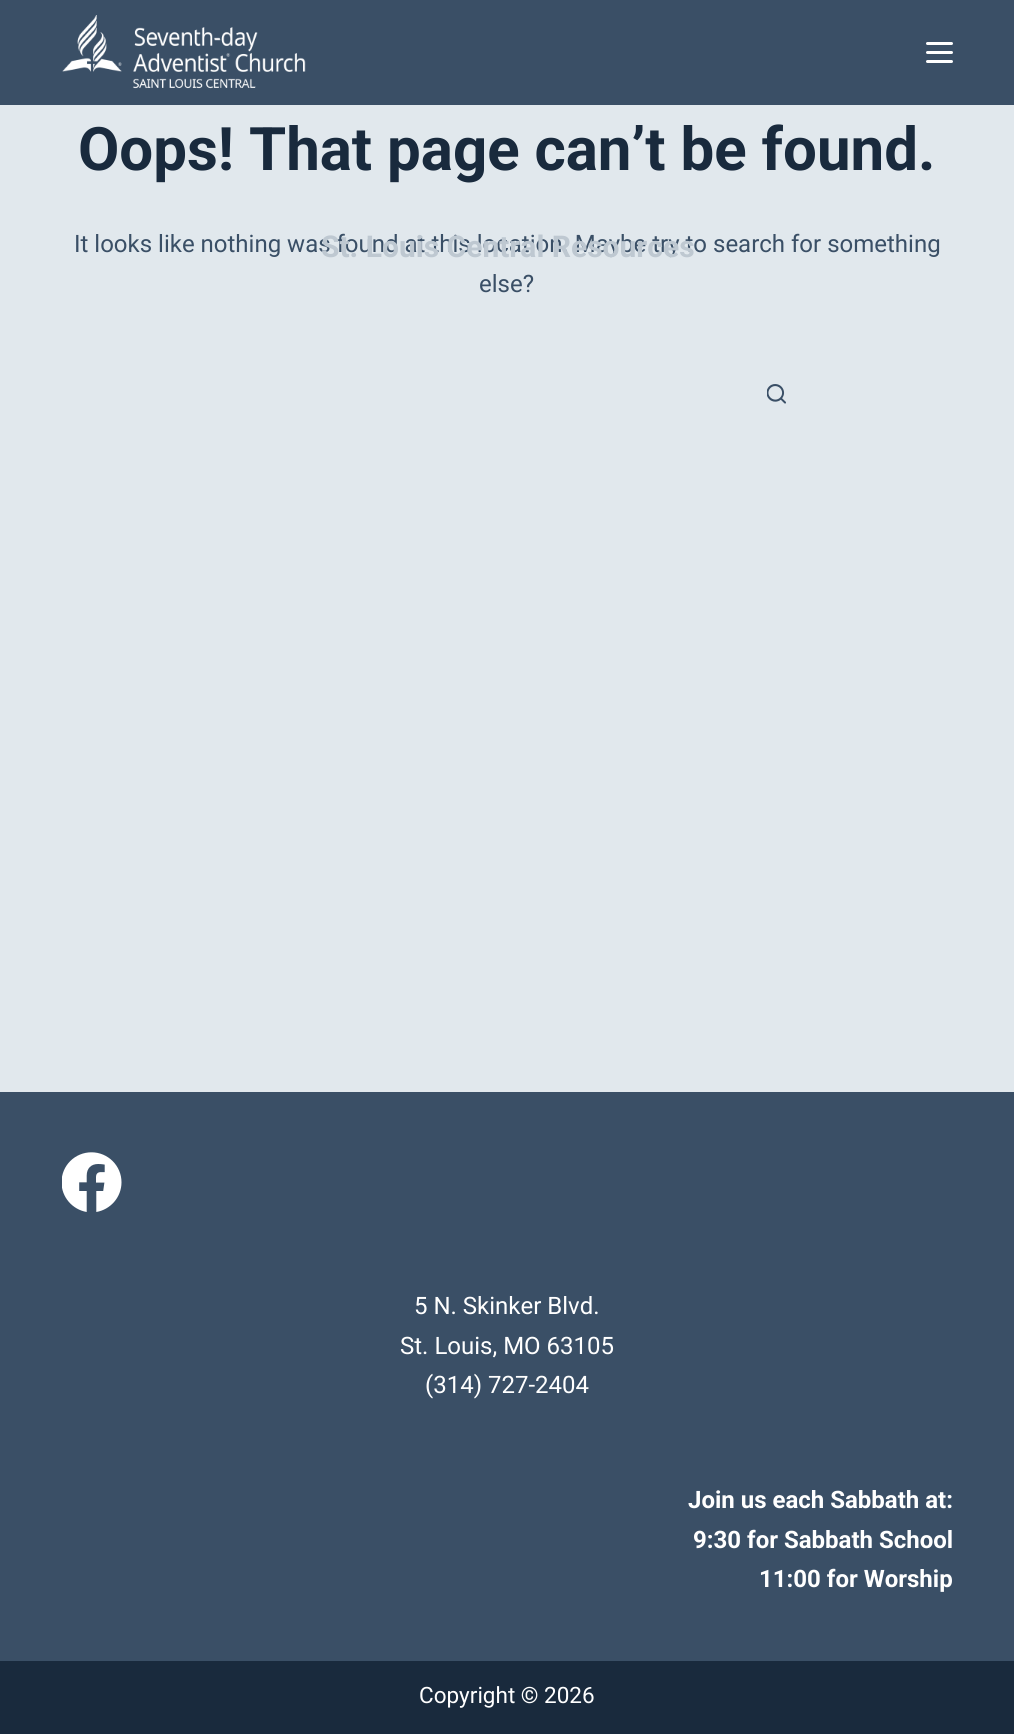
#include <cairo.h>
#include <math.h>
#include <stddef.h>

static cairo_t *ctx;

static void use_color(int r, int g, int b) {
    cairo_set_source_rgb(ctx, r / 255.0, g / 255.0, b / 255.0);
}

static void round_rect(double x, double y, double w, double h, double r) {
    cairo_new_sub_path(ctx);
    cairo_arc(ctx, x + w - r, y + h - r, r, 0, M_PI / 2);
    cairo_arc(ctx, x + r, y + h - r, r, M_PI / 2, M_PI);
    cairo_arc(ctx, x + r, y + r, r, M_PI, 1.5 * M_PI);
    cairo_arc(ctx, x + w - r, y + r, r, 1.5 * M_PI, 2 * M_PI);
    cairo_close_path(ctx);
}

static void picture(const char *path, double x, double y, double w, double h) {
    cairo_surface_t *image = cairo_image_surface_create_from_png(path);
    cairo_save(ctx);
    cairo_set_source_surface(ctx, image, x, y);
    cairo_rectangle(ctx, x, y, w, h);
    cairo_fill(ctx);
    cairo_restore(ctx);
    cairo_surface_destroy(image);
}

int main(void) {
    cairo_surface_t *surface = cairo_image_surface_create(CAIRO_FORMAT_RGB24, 1014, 1734);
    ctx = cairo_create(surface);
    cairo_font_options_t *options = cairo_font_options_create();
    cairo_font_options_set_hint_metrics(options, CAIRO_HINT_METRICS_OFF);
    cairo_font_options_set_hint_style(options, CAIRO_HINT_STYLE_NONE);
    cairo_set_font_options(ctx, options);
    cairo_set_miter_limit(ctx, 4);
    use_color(225, 232, 237);
    cairo_paint(ctx);
    use_color(58, 79, 102);
    cairo_rectangle(ctx, 0, 0, 1014, 105);
    cairo_fill(ctx);
    picture("img1.png", 62, 15, 244, 74);
    use_color(255, 255, 255);
    round_rect(926, 42, 27, 3, 1.5);
    cairo_fill(ctx);
    round_rect(926, 51, 27, 3, 1.5);
    cairo_fill(ctx);
    round_rect(926, 60, 27, 3, 1.5);
    cairo_fill(ctx);
    cairo_select_font_face(ctx, "Roboto", CAIRO_FONT_SLANT_NORMAL, CAIRO_FONT_WEIGHT_BOLD);
    cairo_set_font_size(ctx, 60);
    use_color(25, 42, 61);
    cairo_move_to(ctx, 78, 170);
    cairo_show_text(ctx, "Oops! That page can’t be found.");
    cairo_select_font_face(ctx, "Roboto", CAIRO_FONT_SLANT_NORMAL, CAIRO_FONT_WEIGHT_NORMAL);
    cairo_set_font_size(ctx, 24);
    use_color(58, 79, 102);
    cairo_move_to(ctx, 74, 252);
    cairo_show_text(ctx, "It looks like nothing was found at this location. Maybe try to search for something");
    cairo_move_to(ctx, 479, 292);
    cairo_show_text(ctx, "else?");
    picture("img2.png", 767, 384, 19, 20);
    cairo_rectangle(ctx, 0, 1092, 1014, 569);
    cairo_fill(ctx);
    picture("img3.png", 62, 1152, 60, 60);
    use_color(255, 255, 255);
    cairo_move_to(ctx, 414, 1314);
    cairo_show_text(ctx, "5 N. Skinker Blvd.");
    cairo_move_to(ctx, 400, 1354);
    cairo_show_text(ctx, "St. Louis, MO 63105");
    cairo_move_to(ctx, 425, 1393);
    cairo_show_text(ctx, "(314) 727-2404");
    cairo_select_font_face(ctx, "Roboto", CAIRO_FONT_SLANT_NORMAL, CAIRO_FONT_WEIGHT_BOLD);
    cairo_move_to(ctx, 688, 1508);
    cairo_show_text(ctx, "Join us each Sabbath at:");
    cairo_move_to(ctx, 693, 1548);
    cairo_show_text(ctx, "9:30 for Sabbath School");
    cairo_move_to(ctx, 759, 1587);
    cairo_show_text(ctx, "11:00 for Worship");
    use_color(25, 42, 61);
    cairo_rectangle(ctx, 0, 1661, 1014, 73);
    cairo_fill(ctx);
    cairo_select_font_face(ctx, "Roboto", CAIRO_FONT_SLANT_NORMAL, CAIRO_FONT_WEIGHT_NORMAL);
    cairo_set_font_size(ctx, 22.5);
    use_color(255, 255, 255);
    cairo_move_to(ctx, 419, 1703);
    cairo_show_text(ctx, "Copyright © 2026");
    cairo_select_font_face(ctx, "Roboto", CAIRO_FONT_SLANT_NORMAL, CAIRO_FONT_WEIGHT_BOLD);
    cairo_set_font_size(ctx, 30);
    use_color(190, 200, 209);
    cairo_move_to(ctx, 321, 257);
    cairo_show_text(ctx, "St. Louis Central Resources");
    cairo_surface_write_to_png(surface, "result.png");
    cairo_font_options_destroy(options);
    cairo_destroy(ctx);
    cairo_surface_destroy(surface);
    return 0;
}
